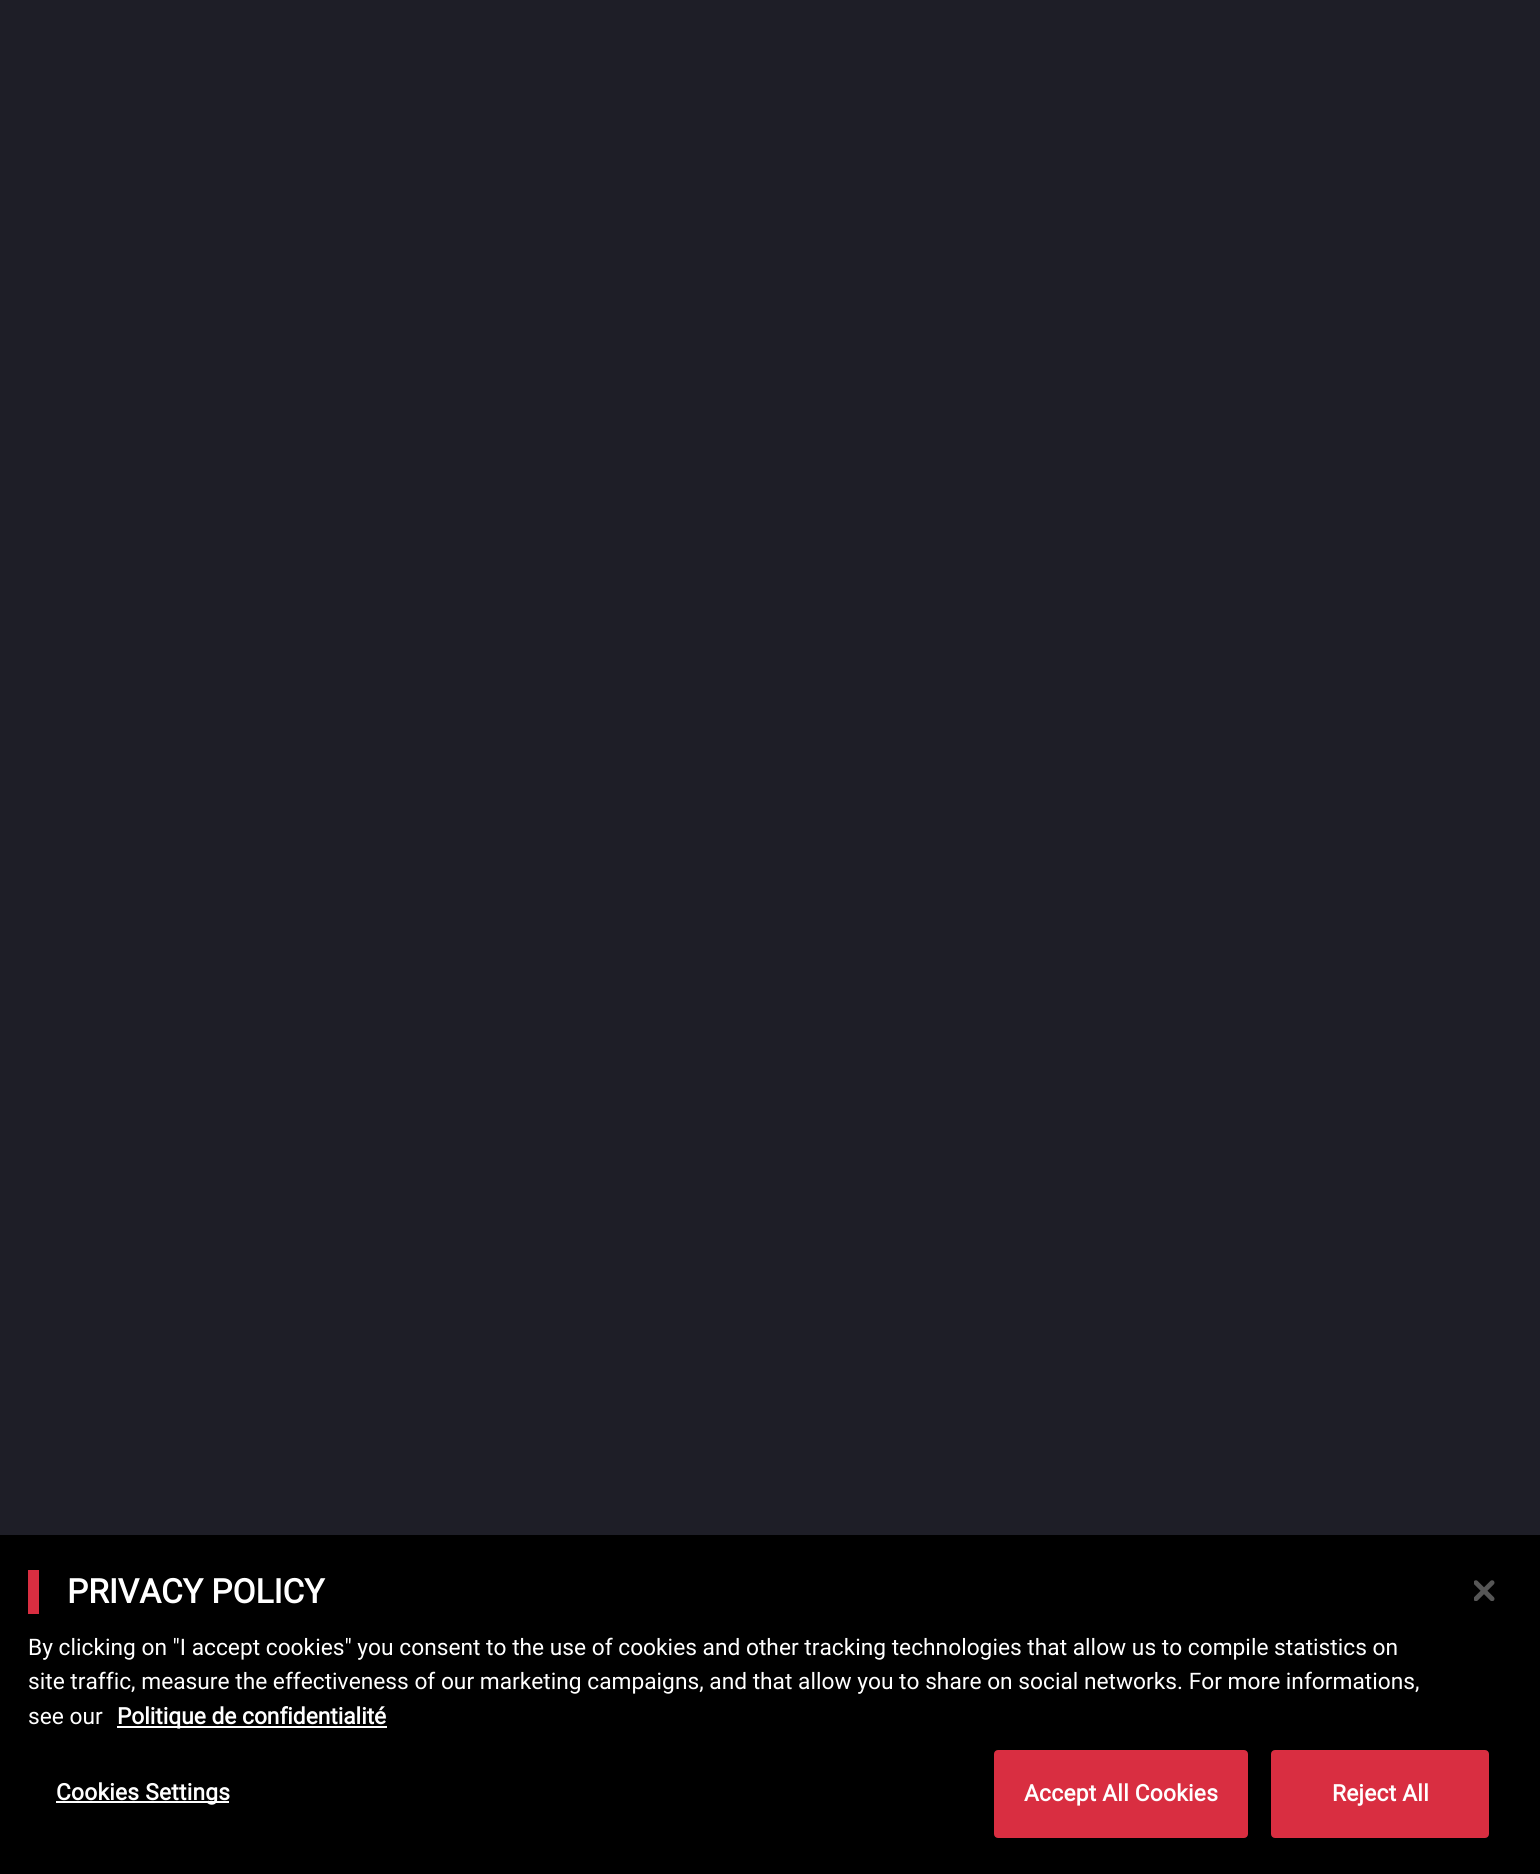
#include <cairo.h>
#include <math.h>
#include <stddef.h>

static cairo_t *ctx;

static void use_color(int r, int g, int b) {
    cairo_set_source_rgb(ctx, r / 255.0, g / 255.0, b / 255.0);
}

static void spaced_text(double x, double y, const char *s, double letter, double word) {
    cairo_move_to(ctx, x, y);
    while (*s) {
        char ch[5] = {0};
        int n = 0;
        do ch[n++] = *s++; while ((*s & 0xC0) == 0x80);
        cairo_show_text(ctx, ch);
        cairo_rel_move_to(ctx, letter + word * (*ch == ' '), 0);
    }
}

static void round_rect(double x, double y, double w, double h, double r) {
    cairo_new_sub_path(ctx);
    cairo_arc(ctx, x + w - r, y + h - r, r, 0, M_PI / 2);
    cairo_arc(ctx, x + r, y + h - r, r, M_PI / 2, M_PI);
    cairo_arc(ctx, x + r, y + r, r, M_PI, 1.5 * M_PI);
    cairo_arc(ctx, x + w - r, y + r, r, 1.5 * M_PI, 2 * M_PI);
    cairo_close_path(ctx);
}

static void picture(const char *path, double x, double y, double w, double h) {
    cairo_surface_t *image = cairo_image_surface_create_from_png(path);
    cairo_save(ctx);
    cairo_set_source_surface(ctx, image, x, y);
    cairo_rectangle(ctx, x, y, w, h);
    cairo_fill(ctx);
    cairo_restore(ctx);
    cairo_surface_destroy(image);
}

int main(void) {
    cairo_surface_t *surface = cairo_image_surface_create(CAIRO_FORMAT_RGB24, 1540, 1874);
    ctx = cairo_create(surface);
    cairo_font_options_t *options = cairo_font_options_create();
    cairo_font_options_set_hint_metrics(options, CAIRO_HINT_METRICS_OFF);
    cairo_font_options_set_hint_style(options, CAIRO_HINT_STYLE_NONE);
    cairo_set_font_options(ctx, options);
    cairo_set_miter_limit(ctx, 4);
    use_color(30, 30, 39);
    cairo_paint(ctx);
    use_color(0, 0, 0);
    cairo_rectangle(ctx, 0, 1535, 1540, 339);
    cairo_fill(ctx);
    use_color(217, 46, 65);
    cairo_rectangle(ctx, 28, 1570, 11, 44);
    cairo_fill(ctx);
    cairo_select_font_face(ctx, "Roboto", CAIRO_FONT_SLANT_NORMAL, CAIRO_FONT_WEIGHT_BOLD);
    cairo_set_font_size(ctx, 33.5);
    use_color(255, 255, 255);
    cairo_move_to(ctx, 67, 1603);
    cairo_show_text(ctx, "PRIVACY POLICY");
    cairo_select_font_face(ctx, "Roboto", CAIRO_FONT_SLANT_NORMAL, CAIRO_FONT_WEIGHT_NORMAL);
    cairo_set_font_size(ctx, 22.75);
    cairo_move_to(ctx, 28, 1655);
    cairo_show_text(ctx, "By clicking on \"I accept cookies\" you consent to the use of cookies and other tracking technologies that allow us to compile statistics on");
    cairo_move_to(ctx, 28, 1689);
    cairo_show_text(ctx, "site traffic, measure the effectiveness of our marketing campaigns, and that allow you to share on social networks. For more informations,");
    cairo_move_to(ctx, 28, 1724);
    cairo_show_text(ctx, "see our");
    cairo_rectangle(ctx, 117, 1726, 270, 2);
    cairo_fill(ctx);
    cairo_select_font_face(ctx, "Roboto", CAIRO_FONT_SLANT_NORMAL, CAIRO_FONT_WEIGHT_BOLD);
    cairo_move_to(ctx, 117, 1724);
    cairo_show_text(ctx, "Politique de confidentialité");
    cairo_rectangle(ctx, 56, 1801, 173, 2);
    cairo_fill(ctx);
    spaced_text(56, 1800, "Cookies Settings", 0.25, 0);
    use_color(217, 46, 65);
    round_rect(995, 1751, 252, 86, 3);
    cairo_fill_preserve(ctx);
    cairo_stroke(ctx);
    use_color(255, 255, 255);
    spaced_text(1024, 1801, "Accept All Cookies", 0.25, 0);
    use_color(217, 46, 65);
    round_rect(1272, 1751, 216, 86, 3);
    cairo_fill_preserve(ctx);
    cairo_stroke(ctx);
    use_color(255, 255, 255);
    spaced_text(1332, 1801, "Reject All", 0.25, 0);
    picture("img1.png", 1474, 1580, 21, 21);
    cairo_surface_write_to_png(surface, "result.png");
    cairo_font_options_destroy(options);
    cairo_destroy(ctx);
    cairo_surface_destroy(surface);
    return 0;
}
